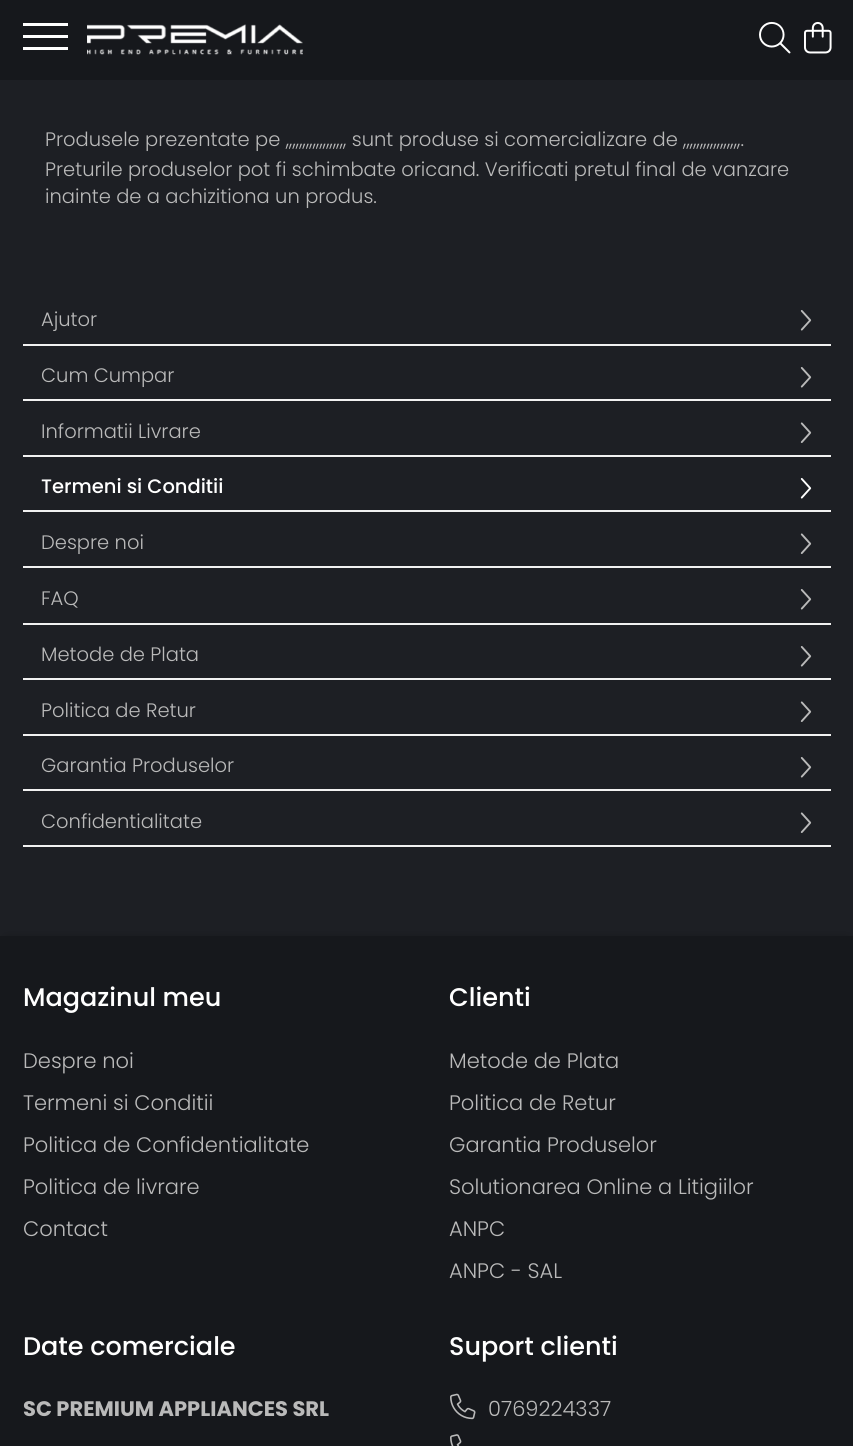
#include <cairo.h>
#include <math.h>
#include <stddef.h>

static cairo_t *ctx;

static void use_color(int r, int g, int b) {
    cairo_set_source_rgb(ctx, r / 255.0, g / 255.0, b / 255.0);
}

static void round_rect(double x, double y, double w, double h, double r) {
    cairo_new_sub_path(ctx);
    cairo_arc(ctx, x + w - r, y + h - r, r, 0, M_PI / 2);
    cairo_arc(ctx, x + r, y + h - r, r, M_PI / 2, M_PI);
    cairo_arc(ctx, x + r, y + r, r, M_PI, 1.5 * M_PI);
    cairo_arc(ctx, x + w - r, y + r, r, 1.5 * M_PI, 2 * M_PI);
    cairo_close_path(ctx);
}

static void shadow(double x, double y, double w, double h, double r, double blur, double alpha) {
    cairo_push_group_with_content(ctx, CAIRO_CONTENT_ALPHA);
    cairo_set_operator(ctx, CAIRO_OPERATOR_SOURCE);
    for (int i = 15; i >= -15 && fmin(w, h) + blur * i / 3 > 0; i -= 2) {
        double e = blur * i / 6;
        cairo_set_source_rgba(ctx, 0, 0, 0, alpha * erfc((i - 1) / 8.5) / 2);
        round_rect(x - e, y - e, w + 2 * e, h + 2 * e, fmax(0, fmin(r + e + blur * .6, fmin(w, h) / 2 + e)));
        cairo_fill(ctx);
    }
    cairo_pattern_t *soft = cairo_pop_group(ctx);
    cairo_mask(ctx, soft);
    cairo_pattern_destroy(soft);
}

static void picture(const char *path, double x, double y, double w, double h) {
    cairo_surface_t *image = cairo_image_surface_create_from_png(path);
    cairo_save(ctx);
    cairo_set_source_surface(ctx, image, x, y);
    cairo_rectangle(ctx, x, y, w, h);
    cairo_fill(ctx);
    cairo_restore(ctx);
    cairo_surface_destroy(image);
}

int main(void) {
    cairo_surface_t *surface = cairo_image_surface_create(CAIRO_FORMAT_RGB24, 853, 1446);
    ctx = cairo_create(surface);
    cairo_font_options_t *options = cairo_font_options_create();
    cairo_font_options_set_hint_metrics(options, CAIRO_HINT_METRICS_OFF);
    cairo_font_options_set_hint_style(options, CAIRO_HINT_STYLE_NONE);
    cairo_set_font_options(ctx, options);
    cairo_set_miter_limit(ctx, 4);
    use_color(29, 31, 36);
    cairo_paint(ctx);
    use_color(22, 24, 28);
    cairo_rectangle(ctx, 0, 0, 853, 80);
    cairo_fill(ctx);
    use_color(255, 255, 255);
    cairo_rectangle(ctx, 23, 35, 45, 3);
    cairo_fill(ctx);
    cairo_rectangle(ctx, 23, 23, 45, 3);
    cairo_fill(ctx);
    cairo_rectangle(ctx, 23, 47, 45, 3);
    cairo_fill(ctx);
    picture("img1.png", 87, 24, 216, 31);
    picture("img2.png", 759, 21, 32, 33);
    picture("img3.png", 804, 21, 28, 33);
    cairo_select_font_face(ctx, "Poppins Light", CAIRO_FONT_SLANT_NORMAL, CAIRO_FONT_WEIGHT_NORMAL);
    cairo_set_font_size(ctx, 19.5);
    use_color(186, 186, 186);
    cairo_move_to(ctx, 45, 146);
    cairo_show_text(ctx, "Produsele prezentate pe ,,,,,,,,,,,,,,,,,, sunt produse si comercializare de ,,,,,,,,,,,,,,,,,.");
    cairo_move_to(ctx, 45, 176);
    cairo_show_text(ctx, "Preturile produselor pot fi schimbate oricand. Verificati pretul final de vanzare");
    cairo_move_to(ctx, 45, 203);
    cairo_show_text(ctx, "inainte de a achizitiona un produs.");
    use_color(241, 241, 241);
    cairo_rectangle(ctx, 23, 344, 808, 2);
    cairo_fill(ctx);
    use_color(186, 186, 186);
    cairo_move_to(ctx, 41, 326);
    cairo_show_text(ctx, "Ajutor");
    picture("img4.png", 800, 310, 12, 21);
    use_color(241, 241, 241);
    cairo_rectangle(ctx, 23, 399, 808, 2);
    cairo_fill(ctx);
    use_color(186, 186, 186);
    cairo_move_to(ctx, 41, 382);
    cairo_show_text(ctx, "Cum Cumpar");
    picture("img4.png", 800, 367, 12, 21);
    use_color(241, 241, 241);
    cairo_rectangle(ctx, 23, 455, 808, 2);
    cairo_fill(ctx);
    use_color(186, 186, 186);
    cairo_move_to(ctx, 41, 438);
    cairo_show_text(ctx, "Informatii Livrare");
    picture("img5.png", 800, 422, 12, 21);
    use_color(241, 241, 241);
    cairo_rectangle(ctx, 23, 510, 808, 2);
    cairo_fill(ctx);
    cairo_select_font_face(ctx, "Poppins Medium", CAIRO_FONT_SLANT_NORMAL, CAIRO_FONT_WEIGHT_NORMAL);
    use_color(255, 255, 255);
    cairo_move_to(ctx, 41, 493);
    cairo_show_text(ctx, "Termeni si Conditii");
    picture("img6.png", 800, 478, 12, 21);
    use_color(241, 241, 241);
    cairo_rectangle(ctx, 23, 566, 808, 2);
    cairo_fill(ctx);
    cairo_select_font_face(ctx, "Poppins Light", CAIRO_FONT_SLANT_NORMAL, CAIRO_FONT_WEIGHT_NORMAL);
    use_color(186, 186, 186);
    cairo_move_to(ctx, 41, 549);
    cairo_show_text(ctx, "Despre noi");
    picture("img5.png", 800, 533, 12, 21);
    use_color(241, 241, 241);
    cairo_rectangle(ctx, 23, 623, 808, 2);
    cairo_fill(ctx);
    use_color(186, 186, 186);
    cairo_move_to(ctx, 41, 605);
    cairo_show_text(ctx, "FAQ");
    picture("img4.png", 800, 589, 12, 21);
    use_color(241, 241, 241);
    cairo_rectangle(ctx, 23, 678, 808, 2);
    cairo_fill(ctx);
    use_color(186, 186, 186);
    cairo_move_to(ctx, 41, 661);
    cairo_show_text(ctx, "Metode de Plata");
    picture("img4.png", 800, 646, 12, 21);
    use_color(241, 241, 241);
    cairo_rectangle(ctx, 23, 734, 808, 2);
    cairo_fill(ctx);
    use_color(186, 186, 186);
    cairo_move_to(ctx, 41, 717);
    cairo_show_text(ctx, "Politica de Retur");
    picture("img5.png", 800, 701, 12, 21);
    use_color(241, 241, 241);
    cairo_rectangle(ctx, 23, 789, 808, 2);
    cairo_fill(ctx);
    use_color(186, 186, 186);
    cairo_move_to(ctx, 41, 772);
    cairo_show_text(ctx, "Garantia Produselor");
    picture("img4.png", 800, 757, 12, 21);
    use_color(241, 241, 241);
    cairo_rectangle(ctx, 23, 845, 808, 2);
    cairo_fill(ctx);
    use_color(186, 186, 186);
    cairo_move_to(ctx, 41, 828);
    cairo_show_text(ctx, "Confidentialitate");
    picture("img5.png", 800, 812, 12, 21);
    use_color(0, 0, 0);
    shadow(6, 939, 842, 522, 0, 5, 0.3);
    use_color(22, 24, 28);
    cairo_rectangle(ctx, 0, 936, 853, 510);
    cairo_fill(ctx);
    cairo_select_font_face(ctx, "Poppins Medium", CAIRO_FONT_SLANT_NORMAL, CAIRO_FONT_WEIGHT_NORMAL);
    cairo_set_font_size(ctx, 25.5);
    use_color(255, 255, 255);
    cairo_move_to(ctx, 23, 1006);
    cairo_show_text(ctx, "Magazinul meu");
    cairo_select_font_face(ctx, "Poppins Light", CAIRO_FONT_SLANT_NORMAL, CAIRO_FONT_WEIGHT_NORMAL);
    cairo_set_font_size(ctx, 21);
    use_color(186, 186, 186);
    cairo_move_to(ctx, 23, 1068);
    cairo_show_text(ctx, "Despre noi");
    cairo_move_to(ctx, 23, 1110);
    cairo_show_text(ctx, "Termeni si Conditii");
    cairo_move_to(ctx, 23, 1152);
    cairo_show_text(ctx, "Politica de Confidentialitate");
    cairo_move_to(ctx, 23, 1194);
    cairo_show_text(ctx, "Politica de livrare");
    cairo_move_to(ctx, 23, 1236);
    cairo_show_text(ctx, "Contact");
    cairo_select_font_face(ctx, "Poppins Medium", CAIRO_FONT_SLANT_NORMAL, CAIRO_FONT_WEIGHT_NORMAL);
    cairo_set_font_size(ctx, 25.5);
    use_color(255, 255, 255);
    cairo_move_to(ctx, 449, 1006);
    cairo_show_text(ctx, "Clienti");
    cairo_select_font_face(ctx, "Poppins Light", CAIRO_FONT_SLANT_NORMAL, CAIRO_FONT_WEIGHT_NORMAL);
    cairo_set_font_size(ctx, 21);
    use_color(186, 186, 186);
    cairo_move_to(ctx, 449, 1068);
    cairo_show_text(ctx, "Metode de Plata");
    cairo_move_to(ctx, 449, 1110);
    cairo_show_text(ctx, "Politica de Retur");
    cairo_move_to(ctx, 449, 1152);
    cairo_show_text(ctx, "Garantia Produselor");
    cairo_move_to(ctx, 449, 1194);
    cairo_show_text(ctx, "Solutionarea Online a Litigiilor");
    cairo_move_to(ctx, 449, 1236);
    cairo_show_text(ctx, "ANPC");
    cairo_move_to(ctx, 449, 1278);
    cairo_show_text(ctx, "ANPC - SAL");
    cairo_select_font_face(ctx, "Poppins Medium", CAIRO_FONT_SLANT_NORMAL, CAIRO_FONT_WEIGHT_NORMAL);
    cairo_set_font_size(ctx, 25.5);
    use_color(255, 255, 255);
    cairo_move_to(ctx, 23, 1355);
    cairo_show_text(ctx, "Date comerciale");
    cairo_select_font_face(ctx, "Poppins", CAIRO_FONT_SLANT_NORMAL, CAIRO_FONT_WEIGHT_BOLD);
    cairo_set_font_size(ctx, 21);
    use_color(186, 186, 186);
    cairo_move_to(ctx, 23, 1416);
    cairo_show_text(ctx, "SC PREMIUM APPLIANCES SRL");
    cairo_select_font_face(ctx, "Poppins Medium", CAIRO_FONT_SLANT_NORMAL, CAIRO_FONT_WEIGHT_NORMAL);
    cairo_set_font_size(ctx, 25.5);
    use_color(255, 255, 255);
    cairo_move_to(ctx, 449, 1355);
    cairo_show_text(ctx, "Suport clienti");
    picture("img7.png", 450, 1393, 26, 27);
    cairo_select_font_face(ctx, "Poppins Light", CAIRO_FONT_SLANT_NORMAL, CAIRO_FONT_WEIGHT_NORMAL);
    cairo_set_font_size(ctx, 21);
    use_color(186, 186, 186);
    cairo_move_to(ctx, 488, 1416);
    cairo_show_text(ctx, "0769224337");
    picture("img8.png", 450, 1434, 12, 12);
    cairo_surface_write_to_png(surface, "result.png");
    cairo_font_options_destroy(options);
    cairo_destroy(ctx);
    cairo_surface_destroy(surface);
    return 0;
}
